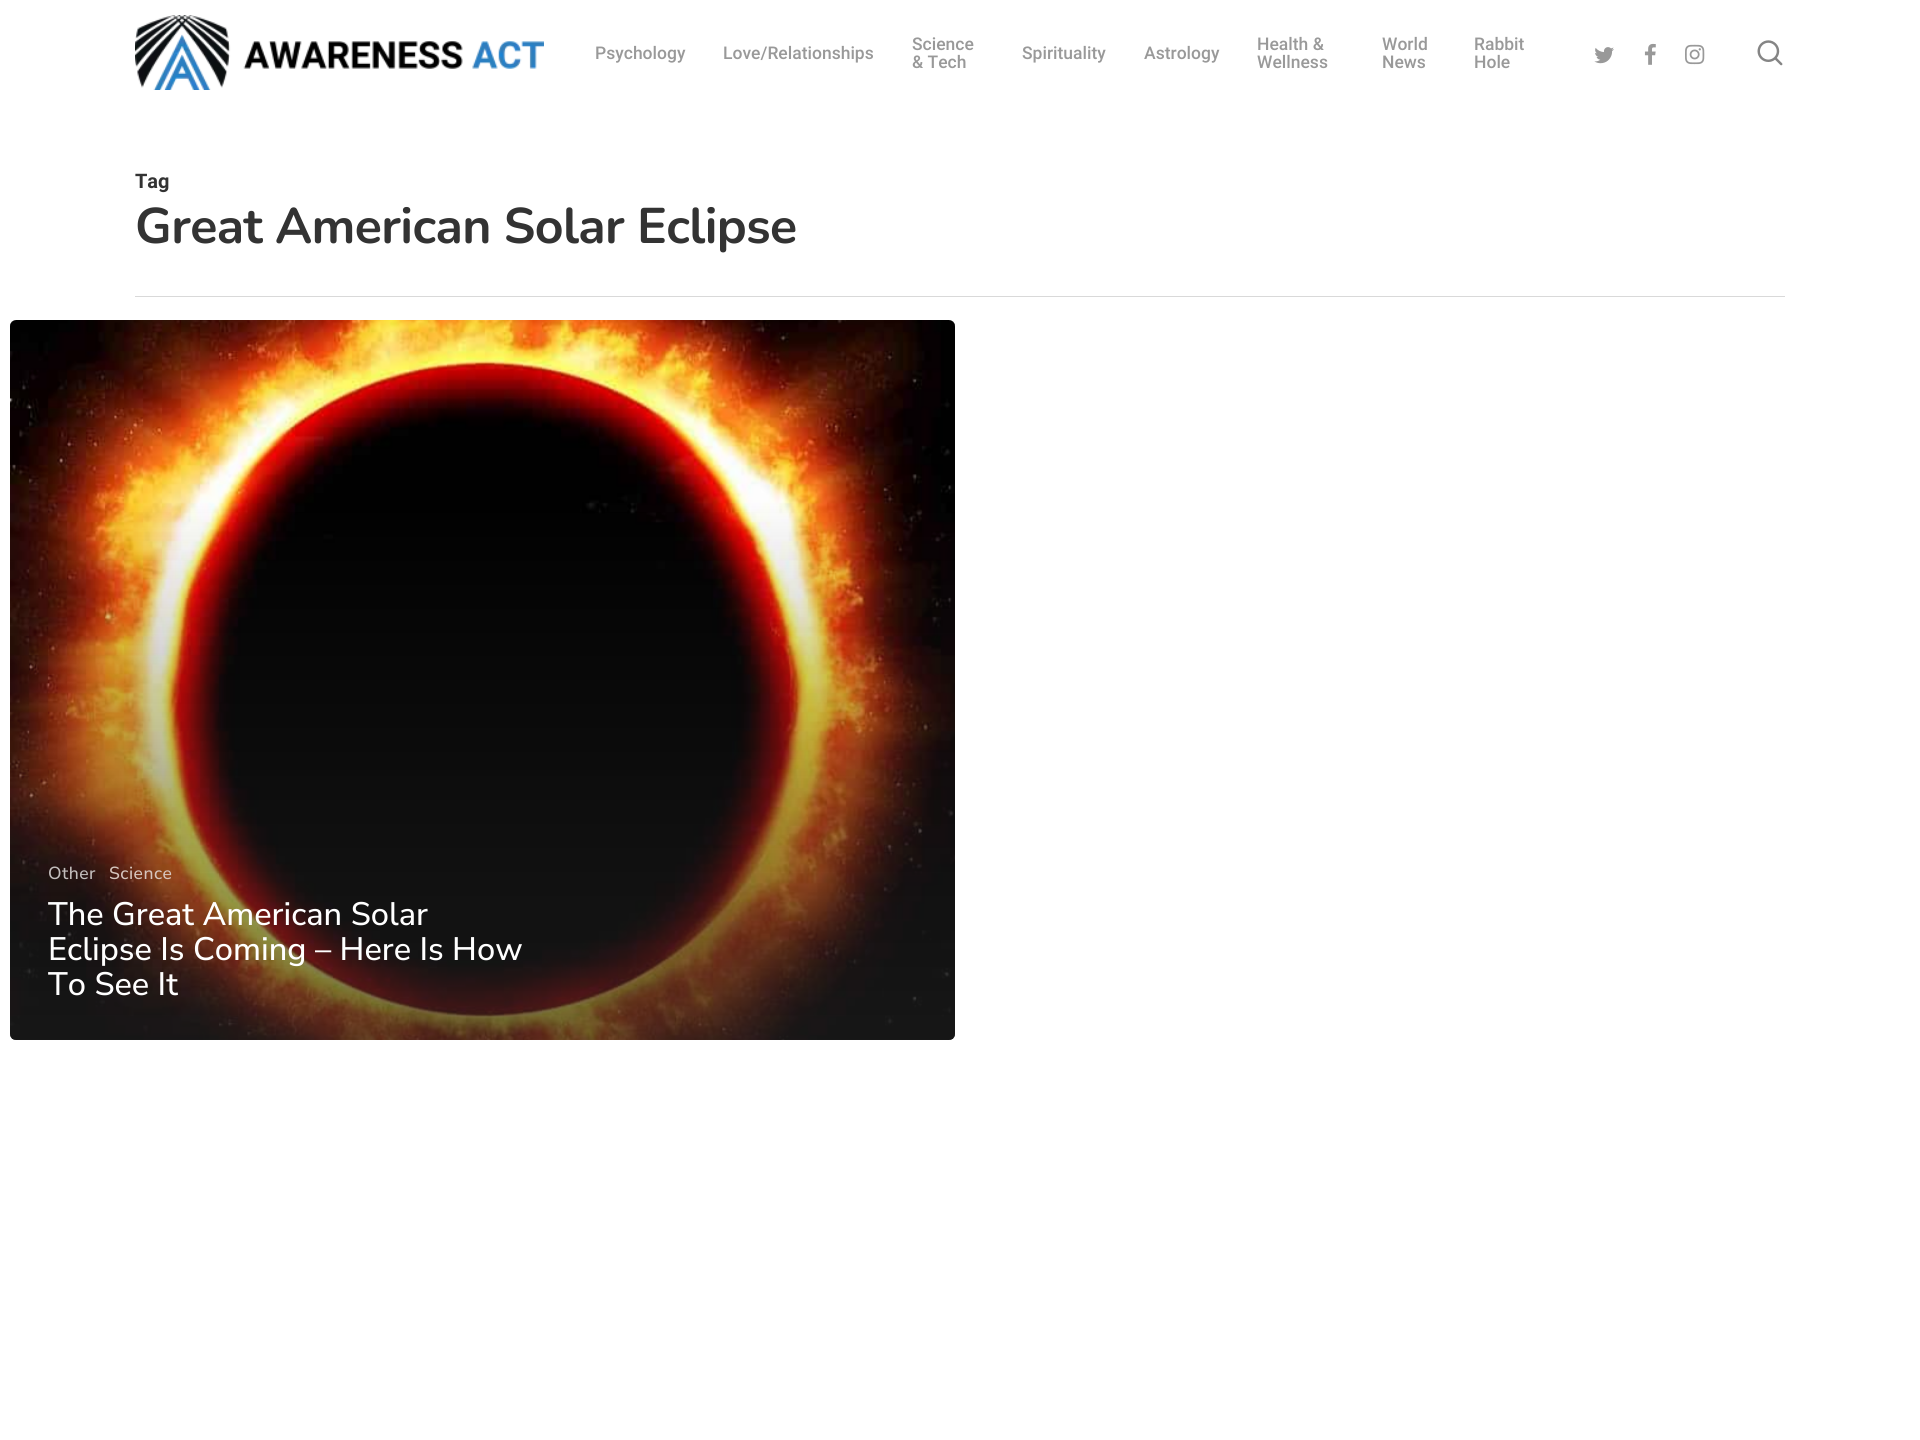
#include <cairo.h>
#include <math.h>
#include <stddef.h>

static cairo_t *ctx;

static void use_color(int r, int g, int b) {
    cairo_set_source_rgb(ctx, r / 255.0, g / 255.0, b / 255.0);
}

static void spaced_text(double x, double y, const char *s, double letter, double word) {
    cairo_move_to(ctx, x, y);
    while (*s) {
        char ch[5] = {0};
        int n = 0;
        do ch[n++] = *s++; while ((*s & 0xC0) == 0x80);
        cairo_show_text(ctx, ch);
        cairo_rel_move_to(ctx, letter + word * (*ch == ' '), 0);
    }
}

static void round_rect(double x, double y, double w, double h, double r) {
    cairo_new_sub_path(ctx);
    cairo_arc(ctx, x + w - r, y + h - r, r, 0, M_PI / 2);
    cairo_arc(ctx, x + r, y + h - r, r, M_PI / 2, M_PI);
    cairo_arc(ctx, x + r, y + r, r, M_PI, 1.5 * M_PI);
    cairo_arc(ctx, x + w - r, y + r, r, 1.5 * M_PI, 2 * M_PI);
    cairo_close_path(ctx);
}

static void picture(const char *path, double x, double y, double w, double h) {
    cairo_surface_t *image = cairo_image_surface_create_from_png(path);
    cairo_save(ctx);
    cairo_set_source_surface(ctx, image, x, y);
    cairo_rectangle(ctx, x, y, w, h);
    cairo_fill(ctx);
    cairo_restore(ctx);
    cairo_surface_destroy(image);
}

int main(void) {
    cairo_surface_t *surface = cairo_image_surface_create(CAIRO_FORMAT_RGB24, 1920, 1440);
    ctx = cairo_create(surface);
    cairo_font_options_t *options = cairo_font_options_create();
    cairo_font_options_set_hint_metrics(options, CAIRO_HINT_METRICS_OFF);
    cairo_font_options_set_hint_style(options, CAIRO_HINT_STYLE_NONE);
    cairo_set_font_options(ctx, options);
    cairo_set_miter_limit(ctx, 4);
    cairo_pattern_t *gradient;
    use_color(255, 255, 255);
    cairo_paint(ctx);
    picture("img1.png", 135, 15, 409, 75);
    cairo_select_font_face(ctx, "Roboto Medium", CAIRO_FONT_SLANT_NORMAL, CAIRO_FONT_WEIGHT_NORMAL);
    cairo_set_font_size(ctx, 17.5);
    use_color(153, 153, 153);
    cairo_move_to(ctx, 595, 59);
    cairo_show_text(ctx, "Psychology");
    cairo_move_to(ctx, 723, 59);
    cairo_show_text(ctx, "Love/Relationships");
    cairo_move_to(ctx, 912, 50);
    cairo_show_text(ctx, "Science");
    cairo_move_to(ctx, 912, 68);
    cairo_show_text(ctx, "& Tech");
    cairo_move_to(ctx, 1022, 59);
    cairo_show_text(ctx, "Spirituality");
    cairo_move_to(ctx, 1144, 59);
    cairo_show_text(ctx, "Astrology");
    cairo_move_to(ctx, 1257, 50);
    cairo_show_text(ctx, "Health &");
    cairo_move_to(ctx, 1257, 68);
    cairo_show_text(ctx, "Wellness");
    cairo_move_to(ctx, 1382, 50);
    cairo_show_text(ctx, "World");
    cairo_move_to(ctx, 1382, 68);
    cairo_show_text(ctx, "News");
    cairo_move_to(ctx, 1474, 50);
    cairo_show_text(ctx, "Rabbit");
    cairo_move_to(ctx, 1474, 68);
    cairo_show_text(ctx, "Hole");
    picture("img2.png", 1594, 47, 20, 17);
    picture("img3.png", 1644, 43, 12, 22);
    picture("img4.png", 1685, 44, 20, 21);
    picture("img5.png", 1757, 40, 26, 26);
    use_color(217, 217, 217);
    cairo_rectangle(ctx, 135, 296, 1650, 1);
    cairo_fill(ctx);
    cairo_select_font_face(ctx, "Roboto", CAIRO_FONT_SLANT_NORMAL, CAIRO_FONT_WEIGHT_BOLD);
    cairo_set_font_size(ctx, 20);
    use_color(51, 51, 51);
    cairo_move_to(ctx, 135, 188);
    cairo_show_text(ctx, "Tag");
    cairo_select_font_face(ctx, "Nunito", CAIRO_FONT_SLANT_NORMAL, CAIRO_FONT_WEIGHT_BOLD);
    cairo_set_font_size(ctx, 50);
    spaced_text(135, 243, "Great American Solar Eclipse", -0.6, 0);
    use_color(179, 179, 179);
    round_rect(10, 320, 945, 720, 6);
    cairo_fill(ctx);
    picture("img6.png", 10, 320, 945, 720);
    gradient = cairo_pattern_create_linear(485, 501, 485, 1044);
    cairo_pattern_add_color_stop_rgba(gradient, 0, 0.137, 0.137, 0.137, 0);
    cairo_pattern_add_color_stop_rgba(gradient, 1, 0.137, 0.137, 0.137, 0.65);
    cairo_set_source(ctx, gradient);
    cairo_pattern_destroy(gradient);
    cairo_new_path(ctx);
    cairo_move_to(ctx, 10, 501);
    cairo_line_to(ctx, 955, 501);
    cairo_line_to(ctx, 955, 1034);
    cairo_curve_to(ctx, 955, 1037.5, 952.5, 1040, 949, 1040);
    cairo_line_to(ctx, 16, 1040);
    cairo_curve_to(ctx, 12.5, 1040, 10, 1037.5, 10, 1034);
    cairo_close_path(ctx);
    cairo_fill(ctx);
    cairo_select_font_face(ctx, "Nunito Sans Medium", CAIRO_FONT_SLANT_NORMAL, CAIRO_FONT_WEIGHT_NORMAL);
    cairo_set_font_size(ctx, 17.5);
    use_color(194, 189, 188);
    spaced_text(48, 879, "Other", 0.5, 0);
    use_color(214, 197, 190);
    spaced_text(109, 879, "Science", 0.5, 0);
    cairo_set_font_size(ctx, 32.5);
    use_color(255, 255, 255);
    cairo_move_to(ctx, 48, 925);
    cairo_show_text(ctx, "The Great American Solar");
    cairo_move_to(ctx, 48, 960);
    cairo_show_text(ctx, "Eclipse Is Coming – Here Is How");
    cairo_move_to(ctx, 48, 995);
    cairo_show_text(ctx, "To See It");
    cairo_surface_write_to_png(surface, "result.png");
    cairo_font_options_destroy(options);
    cairo_destroy(ctx);
    cairo_surface_destroy(surface);
    return 0;
}
